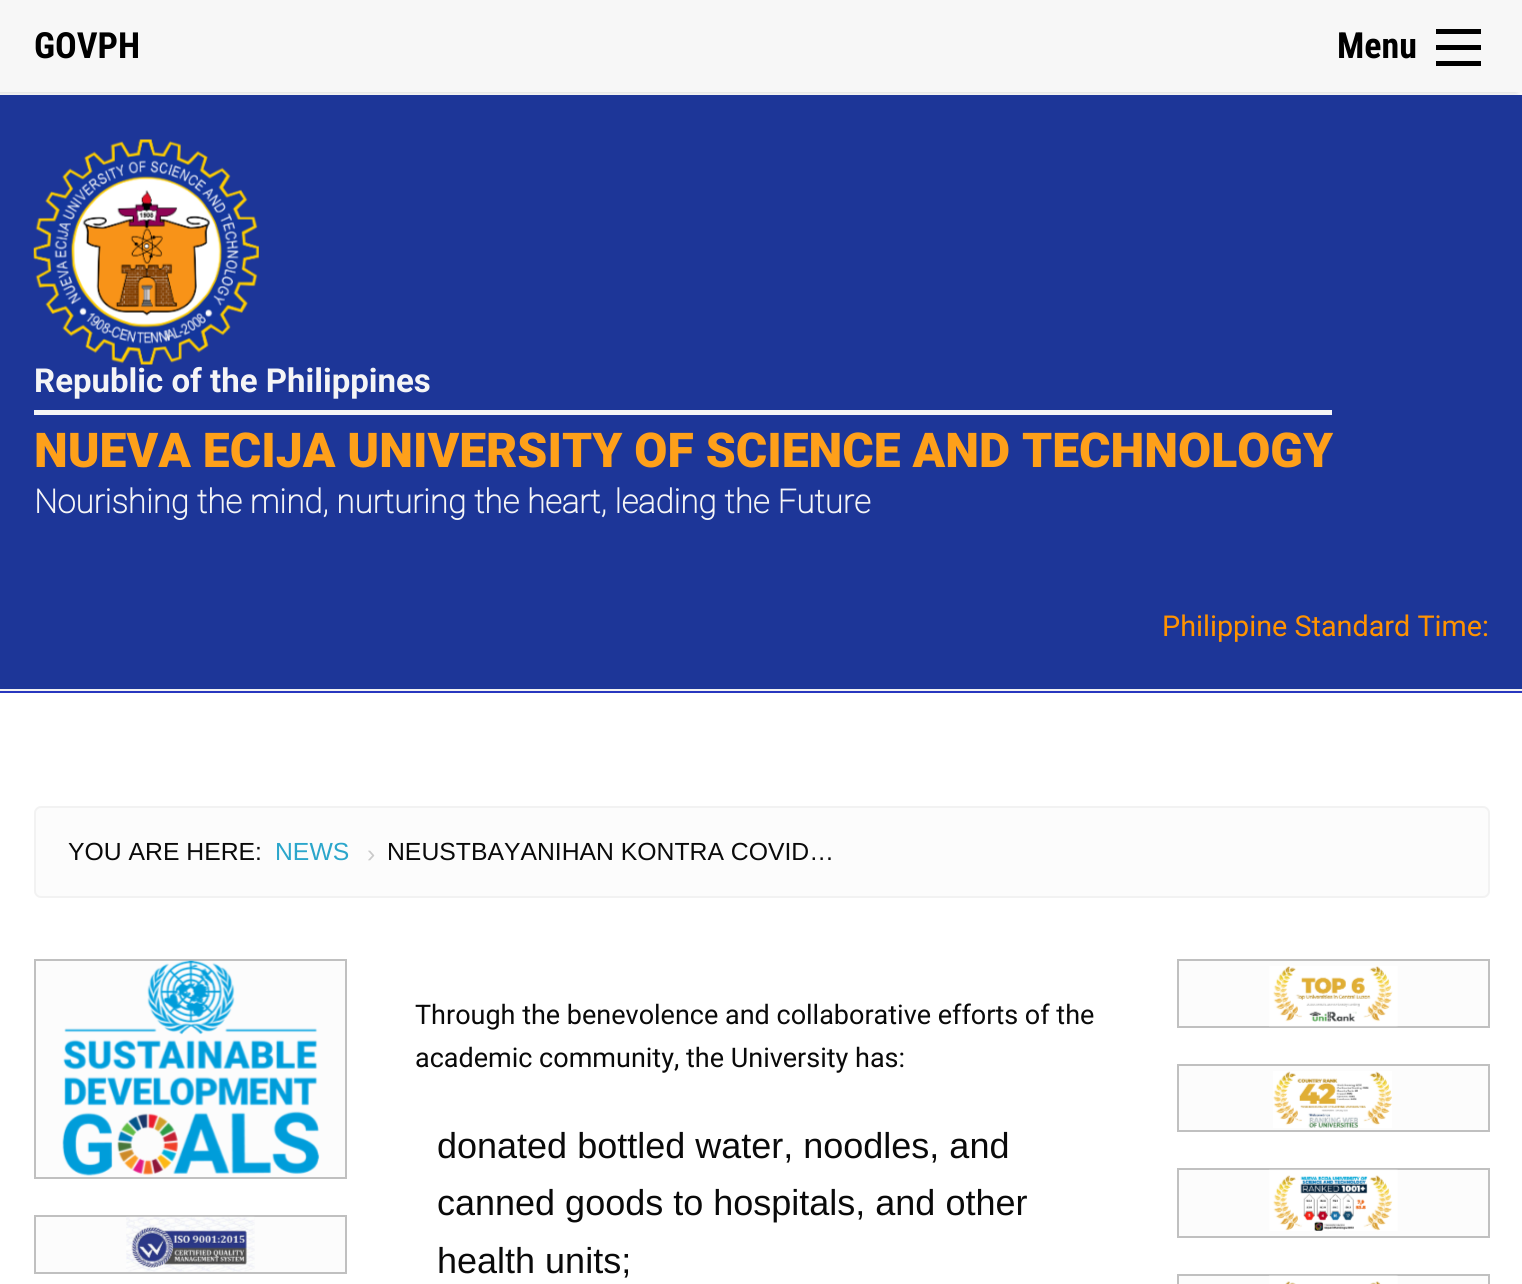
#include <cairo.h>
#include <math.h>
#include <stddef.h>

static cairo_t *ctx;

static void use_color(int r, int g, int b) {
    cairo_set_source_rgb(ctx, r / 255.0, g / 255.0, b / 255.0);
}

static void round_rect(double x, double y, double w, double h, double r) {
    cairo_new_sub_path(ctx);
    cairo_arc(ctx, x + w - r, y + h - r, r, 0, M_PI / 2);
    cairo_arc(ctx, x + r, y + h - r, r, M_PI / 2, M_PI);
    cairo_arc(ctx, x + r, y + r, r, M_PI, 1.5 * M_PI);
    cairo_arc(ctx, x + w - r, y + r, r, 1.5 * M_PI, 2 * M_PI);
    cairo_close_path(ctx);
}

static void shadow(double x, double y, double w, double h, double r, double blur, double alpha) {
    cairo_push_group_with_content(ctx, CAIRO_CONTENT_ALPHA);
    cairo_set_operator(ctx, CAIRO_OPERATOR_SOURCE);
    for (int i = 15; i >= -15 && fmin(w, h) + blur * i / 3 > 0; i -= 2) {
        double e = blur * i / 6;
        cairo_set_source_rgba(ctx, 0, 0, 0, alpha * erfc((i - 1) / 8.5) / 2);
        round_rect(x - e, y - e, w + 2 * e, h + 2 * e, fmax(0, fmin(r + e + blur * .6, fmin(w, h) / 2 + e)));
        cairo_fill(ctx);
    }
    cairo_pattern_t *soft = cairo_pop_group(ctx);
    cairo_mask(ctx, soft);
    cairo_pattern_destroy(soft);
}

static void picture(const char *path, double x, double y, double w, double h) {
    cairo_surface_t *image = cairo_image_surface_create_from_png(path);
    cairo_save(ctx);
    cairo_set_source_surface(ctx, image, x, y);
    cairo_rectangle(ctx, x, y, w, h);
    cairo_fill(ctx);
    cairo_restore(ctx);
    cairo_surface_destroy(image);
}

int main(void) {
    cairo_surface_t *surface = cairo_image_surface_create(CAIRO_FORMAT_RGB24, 1522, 1284);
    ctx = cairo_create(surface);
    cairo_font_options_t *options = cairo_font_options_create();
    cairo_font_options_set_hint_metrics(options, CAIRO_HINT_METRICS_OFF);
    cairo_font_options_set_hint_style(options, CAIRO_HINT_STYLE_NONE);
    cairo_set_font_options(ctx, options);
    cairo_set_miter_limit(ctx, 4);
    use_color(255, 255, 255);
    cairo_paint(ctx);
    use_color(0, 0, 0);
    shadow(-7, 0, 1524, 92, 0, 4.5, 0.2);
    use_color(247, 247, 247);
    cairo_rectangle(ctx, 0, 0, 1522, 92);
    cairo_fill(ctx);
    cairo_select_font_face(ctx, "Roboto Condensed", CAIRO_FONT_SLANT_NORMAL, CAIRO_FONT_WEIGHT_BOLD);
    cairo_set_font_size(ctx, 36);
    use_color(0, 0, 0);
    cairo_move_to(ctx, 34, 58);
    cairo_show_text(ctx, "GOVPH");
    cairo_move_to(ctx, 1337, 58);
    cairo_show_text(ctx, "Menu");
    cairo_rectangle(ctx, 1436, 61, 45, 5);
    cairo_fill(ctx);
    cairo_rectangle(ctx, 1436, 45, 45, 5);
    cairo_fill(ctx);
    cairo_rectangle(ctx, 1436, 29, 45, 5);
    cairo_fill(ctx);
    use_color(29, 54, 152);
    cairo_rectangle(ctx, 0, 95, 1522, 594);
    cairo_fill(ctx);
    use_color(242, 242, 242);
    cairo_rectangle(ctx, 0, 689, 1522, 2);
    cairo_fill(ctx);
    picture("img1.png", 33, 139, 226, 226);
    use_color(245, 245, 246);
    cairo_rectangle(ctx, 34, 410, 1298, 5);
    cairo_fill(ctx);
    cairo_select_font_face(ctx, "Roboto", CAIRO_FONT_SLANT_NORMAL, CAIRO_FONT_WEIGHT_BOLD);
    cairo_set_font_size(ctx, 33);
    cairo_move_to(ctx, 34, 392);
    cairo_show_text(ctx, "Republic of the Philippines");
    cairo_select_font_face(ctx, "Roboto Black", CAIRO_FONT_SLANT_NORMAL, CAIRO_FONT_WEIGHT_NORMAL);
    cairo_set_font_size(ctx, 48);
    use_color(254, 160, 26);
    cairo_move_to(ctx, 34, 467);
    cairo_show_text(ctx, "NUEVA ECIJA UNIVERSITY OF SCIENCE AND TECHNOLOGY");
    cairo_select_font_face(ctx, "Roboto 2", CAIRO_FONT_SLANT_NORMAL, CAIRO_FONT_WEIGHT_BOLD);
    cairo_set_font_size(ctx, 33);
    use_color(245, 245, 246);
    cairo_move_to(ctx, 34, 513);
    cairo_show_text(ctx, "Nourishing the mind, nurturing the heart, leading the Future");
    cairo_select_font_face(ctx, "Roboto", CAIRO_FONT_SLANT_NORMAL, CAIRO_FONT_WEIGHT_NORMAL);
    cairo_set_font_size(ctx, 28.75);
    use_color(255, 146, 0);
    cairo_move_to(ctx, 1162, 636);
    cairo_show_text(ctx, "Philippine Standard Time:");
    use_color(40, 55, 191);
    cairo_rectangle(ctx, 0, 691, 1522, 2);
    cairo_fill(ctx);
    use_color(252, 252, 252);
    round_rect(35, 807, 1454, 90, 6);
    cairo_fill_preserve(ctx);
    use_color(242, 242, 242);
    cairo_stroke(ctx);
    cairo_select_font_face(ctx, "Liberation Sans", CAIRO_FONT_SLANT_NORMAL, CAIRO_FONT_WEIGHT_NORMAL);
    cairo_set_font_size(ctx, 24.75);
    use_color(10, 10, 10);
    cairo_move_to(ctx, 68, 860);
    cairo_show_text(ctx, "YOU ARE HERE:");
    use_color(43, 166, 203);
    cairo_move_to(ctx, 275, 860);
    cairo_show_text(ctx, "NEWS");
    use_color(202, 202, 202);
    cairo_move_to(ctx, 367, 862);
    cairo_show_text(ctx, "›");
    use_color(10, 10, 10);
    cairo_move_to(ctx, 387, 860);
    cairo_show_text(ctx, "NEUSTBAYANIHAN KONTRA COVID…");
    use_color(252, 252, 252);
    cairo_rectangle(ctx, 35, 960, 311, 218);
    cairo_fill_preserve(ctx);
    use_color(192, 192, 192);
    cairo_stroke(ctx);
    picture("img2.png", 62, 960, 258, 216);
    use_color(252, 252, 252);
    cairo_rectangle(ctx, 35, 1216, 311, 57);
    cairo_fill_preserve(ctx);
    use_color(192, 192, 192);
    cairo_stroke(ctx);
    picture("img3.png", 126, 1216, 129, 56);
    cairo_select_font_face(ctx, "Roboto", CAIRO_FONT_SLANT_NORMAL, CAIRO_FONT_WEIGHT_NORMAL);
    cairo_set_font_size(ctx, 27);
    use_color(10, 10, 10);
    cairo_move_to(ctx, 415, 1024);
    cairo_show_text(ctx, "Through the benevolence and collaborative efforts of the");
    cairo_move_to(ctx, 415, 1067);
    cairo_show_text(ctx, "academic community, the University has:");
    cairo_select_font_face(ctx, "Liberation Sans", CAIRO_FONT_SLANT_NORMAL, CAIRO_FONT_WEIGHT_NORMAL);
    cairo_set_font_size(ctx, 36);
    cairo_move_to(ctx, 437, 1158);
    cairo_show_text(ctx, "donated bottled water, noodles, and");
    cairo_move_to(ctx, 437, 1215);
    cairo_show_text(ctx, "canned goods to hospitals, and other");
    cairo_move_to(ctx, 437, 1273);
    cairo_show_text(ctx, "health units;");
    use_color(252, 252, 252);
    cairo_rectangle(ctx, 1178, 960, 311, 67);
    cairo_fill_preserve(ctx);
    use_color(192, 192, 192);
    cairo_stroke(ctx);
    picture("img4.png", 1269, 966, 129, 61);
    use_color(252, 252, 252);
    cairo_rectangle(ctx, 1178, 1065, 311, 66);
    cairo_fill_preserve(ctx);
    use_color(192, 192, 192);
    cairo_stroke(ctx);
    picture("img5.png", 1273, 1071, 119, 57);
    use_color(252, 252, 252);
    cairo_rectangle(ctx, 1178, 1169, 311, 68);
    cairo_fill_preserve(ctx);
    use_color(192, 192, 192);
    cairo_stroke(ctx);
    picture("img6.png", 1269, 1169, 129, 62);
    use_color(252, 252, 252);
    cairo_rectangle(ctx, 1178, 1275, 311, 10);
    cairo_fill_preserve(ctx);
    use_color(192, 192, 192);
    cairo_stroke(ctx);
    picture("img7.png", 1269, 1275, 129, 9);
    cairo_surface_write_to_png(surface, "result.png");
    cairo_font_options_destroy(options);
    cairo_destroy(ctx);
    cairo_surface_destroy(surface);
    return 0;
}
